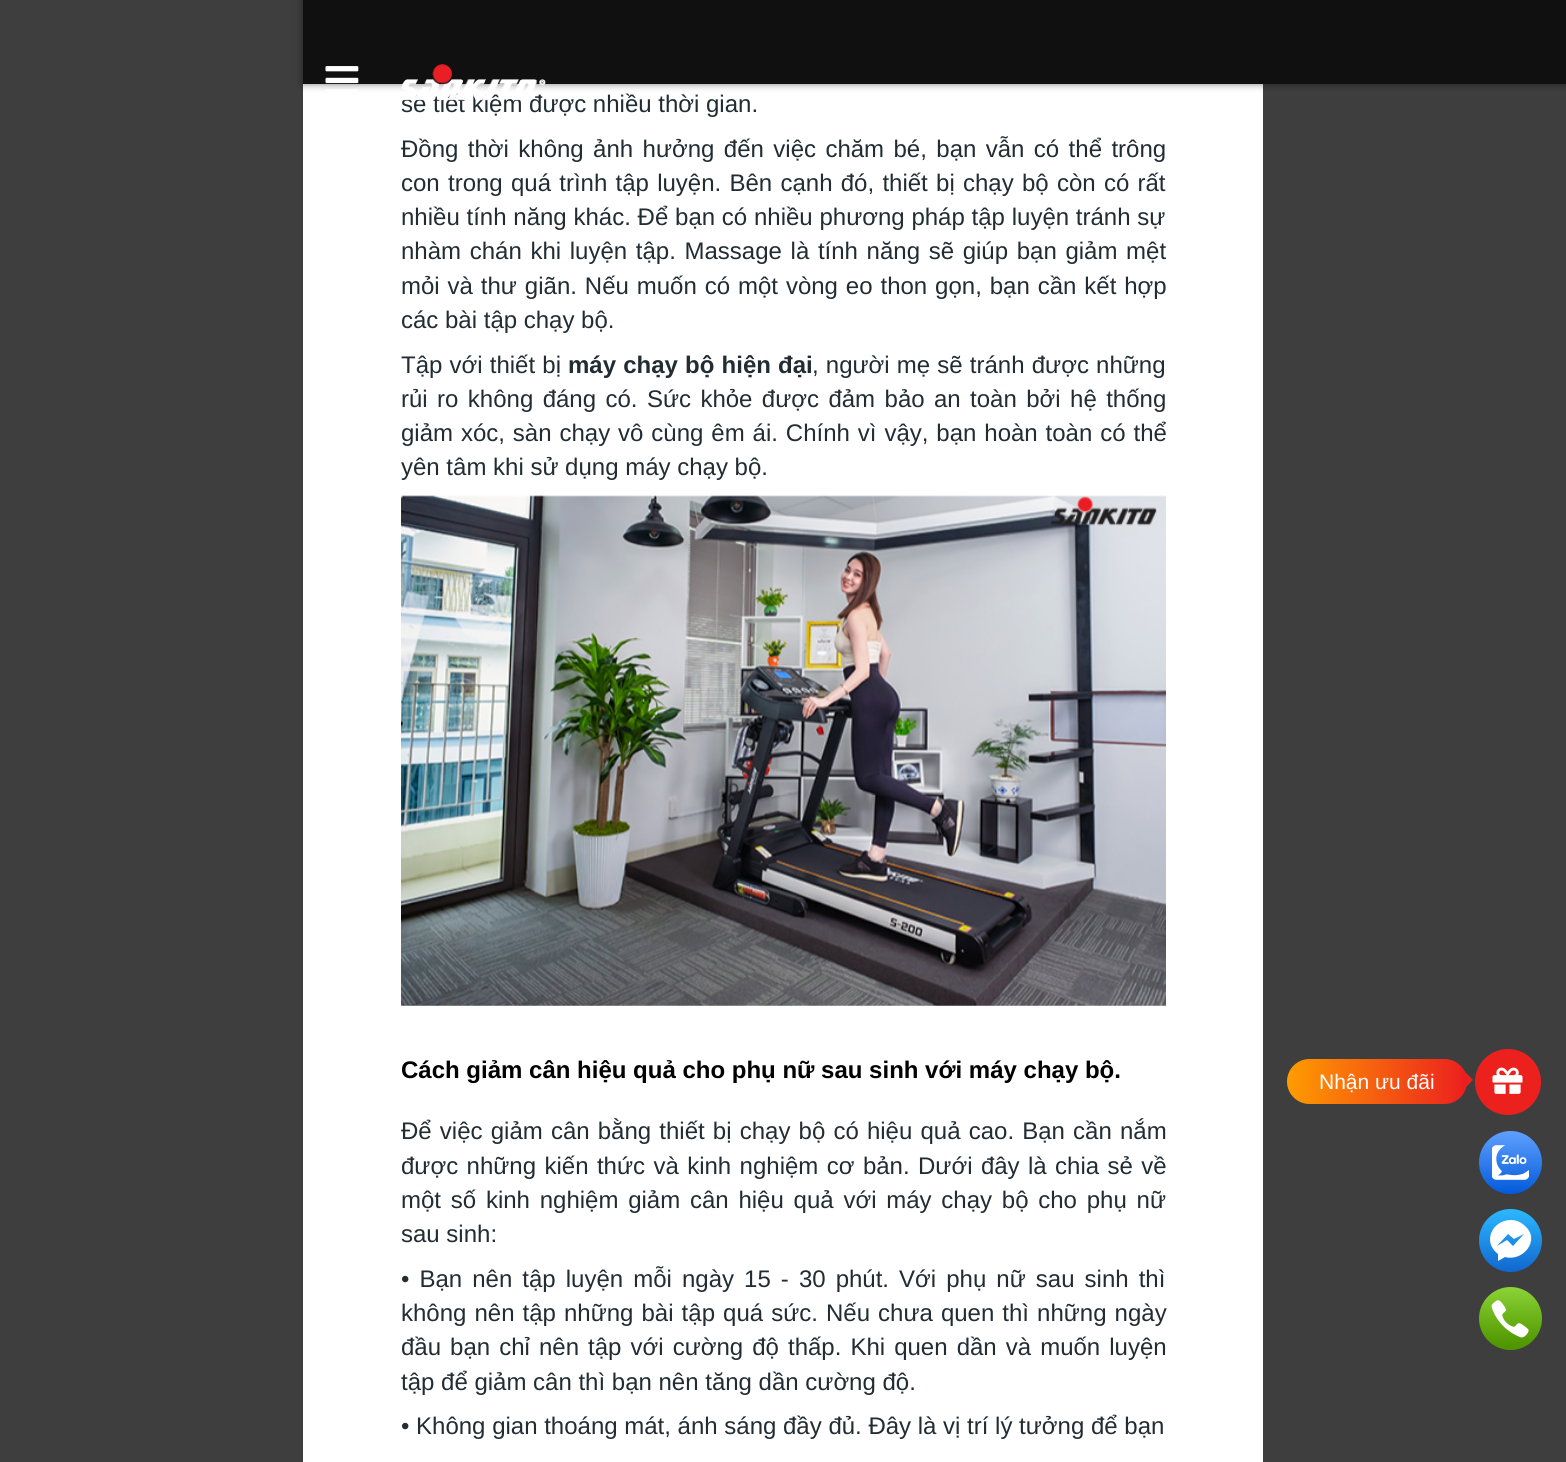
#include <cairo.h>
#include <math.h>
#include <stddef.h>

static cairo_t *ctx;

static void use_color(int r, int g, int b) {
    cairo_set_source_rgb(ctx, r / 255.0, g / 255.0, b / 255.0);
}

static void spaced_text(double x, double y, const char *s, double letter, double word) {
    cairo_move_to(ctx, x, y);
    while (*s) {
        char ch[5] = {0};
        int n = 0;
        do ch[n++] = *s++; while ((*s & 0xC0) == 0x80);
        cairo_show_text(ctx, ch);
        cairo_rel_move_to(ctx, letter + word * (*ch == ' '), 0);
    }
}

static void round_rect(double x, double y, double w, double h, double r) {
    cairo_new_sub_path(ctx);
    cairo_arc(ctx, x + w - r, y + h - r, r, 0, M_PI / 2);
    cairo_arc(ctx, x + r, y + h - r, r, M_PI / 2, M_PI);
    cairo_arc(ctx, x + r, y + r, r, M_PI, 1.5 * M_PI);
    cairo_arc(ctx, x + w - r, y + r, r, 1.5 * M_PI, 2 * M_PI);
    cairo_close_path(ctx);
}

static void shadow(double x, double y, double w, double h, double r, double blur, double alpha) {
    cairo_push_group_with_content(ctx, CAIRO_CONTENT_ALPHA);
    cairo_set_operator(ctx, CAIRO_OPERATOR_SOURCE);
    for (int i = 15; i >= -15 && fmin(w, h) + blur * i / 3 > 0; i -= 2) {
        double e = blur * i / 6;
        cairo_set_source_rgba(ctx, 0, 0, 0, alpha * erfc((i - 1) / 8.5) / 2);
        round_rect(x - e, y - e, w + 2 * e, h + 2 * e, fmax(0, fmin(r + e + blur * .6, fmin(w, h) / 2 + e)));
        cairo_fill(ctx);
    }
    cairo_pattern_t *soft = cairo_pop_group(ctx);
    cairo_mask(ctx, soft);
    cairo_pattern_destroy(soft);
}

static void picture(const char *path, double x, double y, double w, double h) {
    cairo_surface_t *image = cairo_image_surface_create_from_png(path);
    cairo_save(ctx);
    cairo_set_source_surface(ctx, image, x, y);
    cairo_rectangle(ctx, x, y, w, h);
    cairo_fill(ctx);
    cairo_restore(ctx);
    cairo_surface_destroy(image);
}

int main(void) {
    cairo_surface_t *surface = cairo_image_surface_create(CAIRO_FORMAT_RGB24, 1566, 1462);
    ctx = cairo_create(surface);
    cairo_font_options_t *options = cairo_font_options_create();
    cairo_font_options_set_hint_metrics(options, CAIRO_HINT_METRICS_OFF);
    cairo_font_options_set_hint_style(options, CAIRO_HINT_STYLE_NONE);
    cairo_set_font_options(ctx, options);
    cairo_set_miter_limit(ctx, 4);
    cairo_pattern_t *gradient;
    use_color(62, 62, 63);
    cairo_paint(ctx);
    use_color(255, 255, 255);
    cairo_rectangle(ctx, 303, 84, 960, 1378);
    cairo_fill(ctx);
    use_color(0, 0, 0);
    shadow(303, 0, 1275, 84, 0, 4, 0.5);
    use_color(16, 16, 16);
    cairo_rectangle(ctx, 303, 0, 1263, 84);
    cairo_fill(ctx);
    picture("img1.png", 325, 66, 34, 25);
    cairo_select_font_face(ctx, "Liberation Sans", CAIRO_FONT_SLANT_NORMAL, CAIRO_FONT_WEIGHT_NORMAL);
    cairo_set_font_size(ctx, 24);
    use_color(33, 44, 51);
    cairo_move_to(ctx, 401, 112);
    cairo_show_text(ctx, "sẽ tiết kiệm được nhiều thời gian.");
    picture("img2.png", 401, 64, 145, 37);
    spaced_text(401, 157, "Đồng thời không ảnh hưởng đến việc chăm bé, bạn vẫn có thể trông", 0, 2.75);
    spaced_text(401, 191, "con trong quá trình tập luyện. Bên cạnh đó, thiết bị chạy bộ còn có rất", 0, 1.6);
    spaced_text(401, 225, "nhiều tính năng khác. Để bạn có nhiều phương pháp tập luyện tránh sự", 0, 0.1);
    spaced_text(401, 259, "nhàm chán khi luyện tập. Massage là tính năng sẽ giúp bạn giảm mệt", 0, 2);
    spaced_text(401, 294, "mỏi và thư giãn. Nếu muốn có một vòng eo thon gọn, bạn cần kết hợp", 0, 1.25);
    cairo_move_to(ctx, 401, 328);
    cairo_show_text(ctx, "các bài tập chạy bộ.");
    spaced_text(401, 373, "Tập với thiết bị", 0, 0.5);
    cairo_select_font_face(ctx, "Liberation Sans", CAIRO_FONT_SLANT_NORMAL, CAIRO_FONT_WEIGHT_BOLD);
    spaced_text(568, 373, "máy chạy bộ hiện đại", 0, 0.5);
    cairo_select_font_face(ctx, "Liberation Sans", CAIRO_FONT_SLANT_NORMAL, CAIRO_FONT_WEIGHT_NORMAL);
    spaced_text(812, 373, ", người mẹ sẽ tránh được những", 0, 0.5);
    spaced_text(401, 407, "rủi ro không đáng có. Sức khỏe được đảm bảo an toàn bởi hệ thống", 0, 2.75);
    spaced_text(401, 441, "giảm xóc, sàn chạy vô cùng êm ái. Chính vì vậy, bạn hoàn toàn có thể", 0, 1.25);
    cairo_move_to(ctx, 401, 475);
    cairo_show_text(ctx, "yên tâm khi sử dụng máy chạy bộ.");
    picture("img3.png", 401, 495, 765, 511);
    cairo_select_font_face(ctx, "Liberation Sans", CAIRO_FONT_SLANT_NORMAL, CAIRO_FONT_WEIGHT_BOLD);
    use_color(0, 0, 0);
    cairo_move_to(ctx, 401, 1078);
    cairo_show_text(ctx, "Cách giảm cân hiệu quả cho phụ nữ sau sinh với máy chạy bộ.");
    cairo_select_font_face(ctx, "Liberation Sans", CAIRO_FONT_SLANT_NORMAL, CAIRO_FONT_WEIGHT_NORMAL);
    use_color(33, 44, 51);
    spaced_text(401, 1139, "Để việc giảm cân bằng thiết bị chạy bộ có hiệu quả cao. Bạn cần nắm", 0, 1.5);
    spaced_text(401, 1174, "được những kiến thức và kinh nghiệm cơ bản. Dưới đây là chia sẻ về", 0, 1.75);
    spaced_text(401, 1208, "một số kinh nghiệm giảm cân hiệu quả với máy chạy bộ cho phụ nữ", 0, 3.1);
    cairo_move_to(ctx, 401, 1242);
    cairo_show_text(ctx, "sau sinh:");
    spaced_text(401, 1287, "• Bạn nên tập luyện mỗi ngày 15 - 30 phút. Với phụ nữ sau sinh thì", 0, 3.4);
    spaced_text(401, 1321, "không nên tập những bài tập quá sức. Nếu chưa quen thì những ngày", 0, 1.4);
    spaced_text(401, 1355, "đầu bạn chỉ nên tập với cường độ thấp. Khi quen dần và muốn luyện", 0, 2.4);
    cairo_move_to(ctx, 401, 1390);
    cairo_show_text(ctx, "tập để giảm cân thì bạn nên tăng dần cường độ.");
    cairo_move_to(ctx, 401, 1434);
    cairo_show_text(ctx, "• Không gian thoáng mát, ánh sáng đầy đủ. Đây là vị trí lý tưởng để bạn");
    gradient = cairo_pattern_create_linear(1467, 1082, 1287, 1082);
    cairo_pattern_add_color_stop_rgba(gradient, 0, 0.925, 0.122, 0.122, 1);
    cairo_pattern_add_color_stop_rgba(gradient, 1, 1, 0.612, 0, 1);
    cairo_set_source(ctx, gradient);
    cairo_pattern_destroy(gradient);
    round_rect(1287, 1059, 180, 45, 22.5);
    cairo_fill(ctx);
    cairo_set_font_size(ctx, 21);
    use_color(255, 255, 255);
    cairo_move_to(ctx, 1319, 1089);
    cairo_show_text(ctx, "Nhận ưu đãi");
    use_color(236, 31, 31);
    cairo_new_path(ctx);
    cairo_move_to(ctx, 1461, 1092);
    cairo_line_to(ctx, 1461, 1068);
    cairo_line_to(ctx, 1473, 1080);
    cairo_close_path(ctx);
    cairo_fill(ctx);
    use_color(236, 33, 30);
    cairo_arc(ctx, 1508, 1082, 33, 0, 2 * M_PI);
    cairo_fill(ctx);
    picture("img4.png", 1492, 1067, 31, 27);
    picture("img5.png", 1479, 1131, 63, 63);
    gradient = cairo_pattern_create_linear(1510, 1271, 1510, 1210);
    cairo_pattern_add_color_stop_rgba(gradient, 0, 0.067, 0.408, 0.812, 1);
    cairo_pattern_add_color_stop_rgba(gradient, 1, 0.173, 0.718, 1, 1);
    cairo_set_source(ctx, gradient);
    cairo_pattern_destroy(gradient);
    cairo_arc(ctx, 1510.5, 1240.5, 31.5, 0, 2 * M_PI);
    cairo_fill(ctx);
    use_color(255, 255, 255);
    cairo_set_fill_rule(ctx, CAIRO_FILL_RULE_EVEN_ODD);
    cairo_new_path(ctx);
    cairo_move_to(ctx, 1511, 1220);
    cairo_curve_to(ctx, 1492, 1220, 1482, 1242, 1498, 1254);
    cairo_line_to(ctx, 1498, 1261);
    cairo_line_to(ctx, 1505, 1257);
    cairo_curve_to(ctx, 1523, 1262, 1541, 1240, 1525, 1226);
    cairo_curve_to(ctx, 1521, 1222, 1516, 1220, 1511, 1220);
    cairo_close_path(ctx);
    cairo_move_to(ctx, 1513, 1246);
    cairo_line_to(ctx, 1507, 1240);
    cairo_line_to(ctx, 1497, 1246);
    cairo_line_to(ctx, 1508, 1234);
    cairo_line_to(ctx, 1514, 1239);
    cairo_line_to(ctx, 1524, 1234);
    cairo_close_path(ctx);
    cairo_fill(ctx);
    picture("img6.png", 1479, 1287, 63, 63);
    cairo_surface_write_to_png(surface, "result.png");
    cairo_font_options_destroy(options);
    cairo_destroy(ctx);
    cairo_surface_destroy(surface);
    return 0;
}
